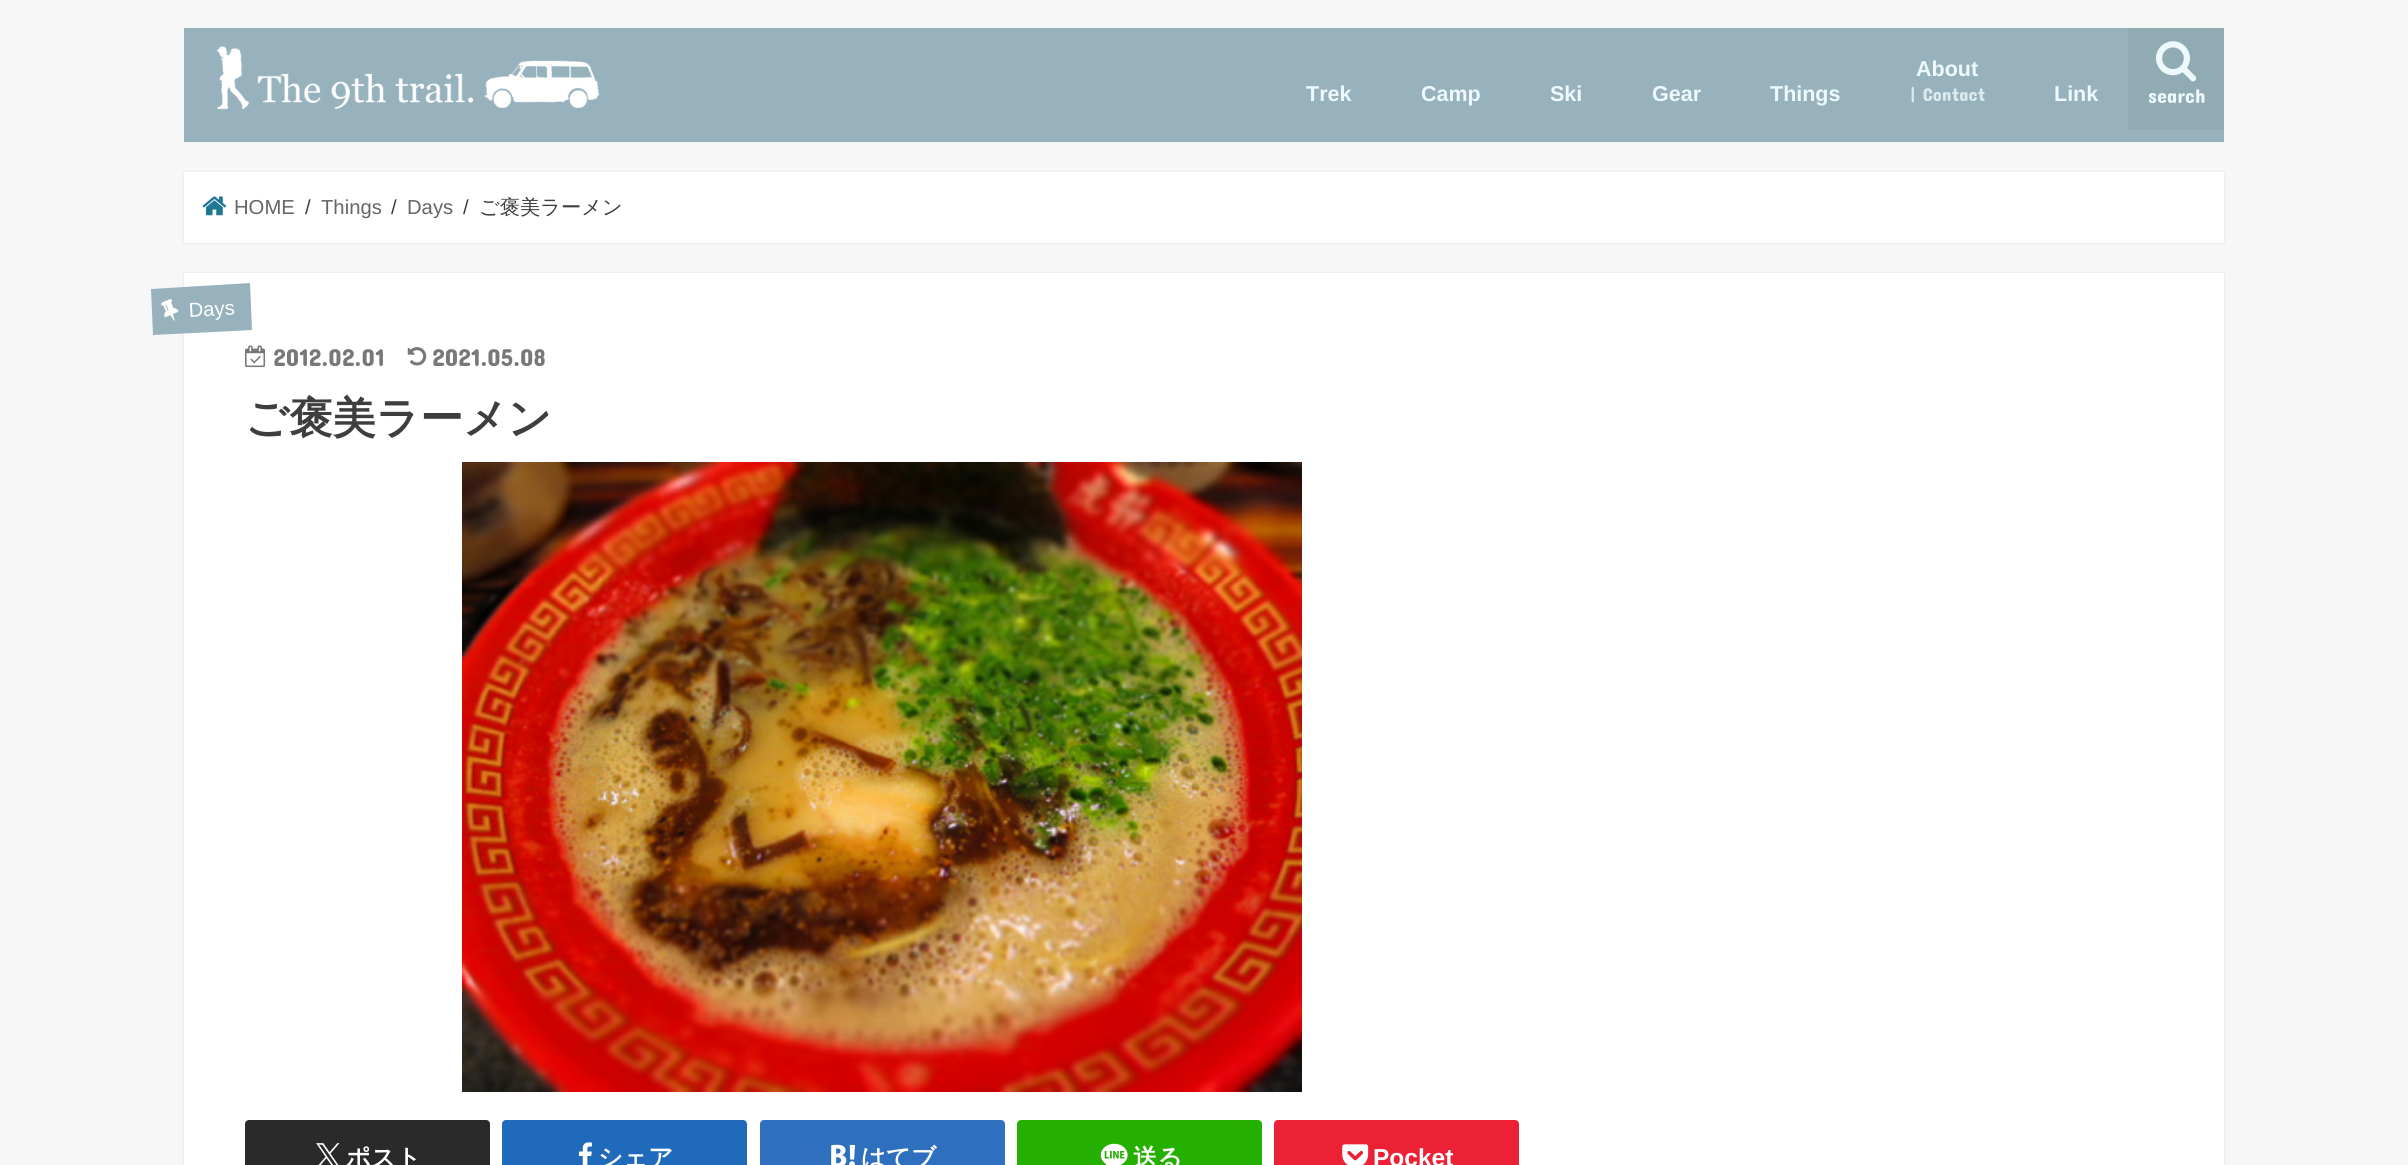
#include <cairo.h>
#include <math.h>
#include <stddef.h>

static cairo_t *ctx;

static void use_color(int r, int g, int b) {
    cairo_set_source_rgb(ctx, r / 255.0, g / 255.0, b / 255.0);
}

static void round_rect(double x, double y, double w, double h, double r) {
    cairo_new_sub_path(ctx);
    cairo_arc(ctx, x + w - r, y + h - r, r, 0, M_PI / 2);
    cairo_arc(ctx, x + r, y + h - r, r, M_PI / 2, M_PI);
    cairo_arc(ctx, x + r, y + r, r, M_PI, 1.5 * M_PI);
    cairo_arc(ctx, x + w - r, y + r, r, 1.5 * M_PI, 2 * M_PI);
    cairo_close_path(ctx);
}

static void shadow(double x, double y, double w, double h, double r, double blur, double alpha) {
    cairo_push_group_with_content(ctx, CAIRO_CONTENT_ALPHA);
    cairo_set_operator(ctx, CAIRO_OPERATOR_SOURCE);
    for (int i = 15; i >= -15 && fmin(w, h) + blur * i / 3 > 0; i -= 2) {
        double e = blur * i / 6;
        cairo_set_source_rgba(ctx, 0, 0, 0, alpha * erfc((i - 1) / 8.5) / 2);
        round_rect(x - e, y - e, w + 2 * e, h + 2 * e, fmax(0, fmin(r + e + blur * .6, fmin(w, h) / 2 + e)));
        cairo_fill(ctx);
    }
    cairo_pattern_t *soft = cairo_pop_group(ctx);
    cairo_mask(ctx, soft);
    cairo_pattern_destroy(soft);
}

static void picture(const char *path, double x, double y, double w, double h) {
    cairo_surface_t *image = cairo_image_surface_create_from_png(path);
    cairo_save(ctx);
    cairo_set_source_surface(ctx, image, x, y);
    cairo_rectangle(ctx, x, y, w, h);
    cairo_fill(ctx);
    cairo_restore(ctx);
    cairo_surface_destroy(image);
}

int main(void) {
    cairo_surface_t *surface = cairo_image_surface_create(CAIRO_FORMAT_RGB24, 2408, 1165);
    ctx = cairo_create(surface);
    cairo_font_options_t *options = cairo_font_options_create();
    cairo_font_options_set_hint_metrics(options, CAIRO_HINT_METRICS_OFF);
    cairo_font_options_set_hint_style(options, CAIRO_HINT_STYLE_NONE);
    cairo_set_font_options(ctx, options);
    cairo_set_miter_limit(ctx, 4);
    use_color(247, 247, 247);
    cairo_paint(ctx);
    use_color(151, 178, 189);
    cairo_rectangle(ctx, 184, 28, 2040, 114);
    cairo_fill(ctx);
    picture("img1.png", 216, 46, 384, 64);
    cairo_select_font_face(ctx, "Liberation Sans", CAIRO_FONT_SLANT_NORMAL, CAIRO_FONT_WEIGHT_BOLD);
    cairo_set_font_size(ctx, 21.5);
    use_color(237, 249, 252);
    cairo_move_to(ctx, 1306, 101);
    cairo_show_text(ctx, "Trek");
    cairo_move_to(ctx, 1421, 101);
    cairo_show_text(ctx, "Camp");
    cairo_move_to(ctx, 1550, 101);
    cairo_show_text(ctx, "Ski");
    cairo_move_to(ctx, 1652, 101);
    cairo_show_text(ctx, "Gear");
    cairo_move_to(ctx, 1770, 101);
    cairo_show_text(ctx, "Things");
    cairo_move_to(ctx, 1916, 76);
    cairo_show_text(ctx, "About");
    cairo_select_font_face(ctx, "Concert One", CAIRO_FONT_SLANT_NORMAL, CAIRO_FONT_WEIGHT_NORMAL);
    cairo_set_font_size(ctx, 18.5);
    use_color(220, 235, 239);
    cairo_move_to(ctx, 1910, 101);
    cairo_show_text(ctx, "| Contact");
    cairo_select_font_face(ctx, "Liberation Sans", CAIRO_FONT_SLANT_NORMAL, CAIRO_FONT_WEIGHT_BOLD);
    cairo_set_font_size(ctx, 21.5);
    use_color(237, 249, 252);
    cairo_move_to(ctx, 2054, 101);
    cairo_show_text(ctx, "Link");
    use_color(145, 171, 181);
    cairo_rectangle(ctx, 2128, 28, 96, 102);
    cairo_fill(ctx);
    picture("img2.png", 2156, 41, 41, 41);
    cairo_select_font_face(ctx, "Concert One", CAIRO_FONT_SLANT_NORMAL, CAIRO_FONT_WEIGHT_NORMAL);
    cairo_set_font_size(ctx, 20.25);
    use_color(237, 249, 252);
    cairo_move_to(ctx, 2148, 103);
    cairo_show_text(ctx, "search");
    use_color(221, 221, 221);
    shadow(184, 172, 2040, 71, 0, 1, 1);
    use_color(255, 255, 255);
    cairo_rectangle(ctx, 184, 172, 2040, 71);
    cairo_fill(ctx);
    picture("img3.png", 202, 196, 25, 20);
    cairo_select_font_face(ctx, "Liberation Sans", CAIRO_FONT_SLANT_NORMAL, CAIRO_FONT_WEIGHT_NORMAL);
    use_color(102, 102, 102);
    cairo_move_to(ctx, 234, 214);
    cairo_show_text(ctx, "HOME");
    use_color(62, 62, 62);
    cairo_move_to(ctx, 305, 214);
    cairo_show_text(ctx, "/");
    use_color(102, 102, 102);
    cairo_move_to(ctx, 321, 214);
    cairo_show_text(ctx, "Things");
    use_color(62, 62, 62);
    cairo_move_to(ctx, 391, 214);
    cairo_show_text(ctx, "/");
    use_color(102, 102, 102);
    cairo_move_to(ctx, 407, 214);
    cairo_show_text(ctx, "Days");
    use_color(62, 62, 62);
    cairo_move_to(ctx, 463, 214);
    cairo_show_text(ctx, "/");
    cairo_select_font_face(ctx, "WenQuanYi Zen Hei Medium", CAIRO_FONT_SLANT_NORMAL, CAIRO_FONT_WEIGHT_NORMAL);
    cairo_move_to(ctx, 479, 214);
    cairo_show_text(ctx, "ご褒美ラーメン");
    use_color(221, 221, 221);
    shadow(184, 273, 2040, 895, 0, 1, 1);
    use_color(255, 255, 255);
    cairo_rectangle(ctx, 184, 273, 2040, 892);
    cairo_fill(ctx);
    use_color(151, 178, 189);
    cairo_new_path(ctx);
    cairo_move_to(ctx, 151, 289);
    cairo_line_to(ctx, 250, 283);
    cairo_line_to(ctx, 252, 330);
    cairo_line_to(ctx, 153, 335);
    cairo_close_path(ctx);
    cairo_fill(ctx);
    picture("img4.png", 161, 299, 18, 22);
    cairo_select_font_face(ctx, "Liberation Sans", CAIRO_FONT_SLANT_NORMAL, CAIRO_FONT_WEIGHT_NORMAL);
    use_color(255, 255, 255);
    cairo_save(ctx);
    cairo_translate(ctx, 189, 317);
    cairo_rotate(ctx, -3 * M_PI / 180);
    cairo_move_to(ctx, 0, 0);
    cairo_show_text(ctx, "Days");
    cairo_restore(ctx);
    picture("img5.png", 245, 345, 21, 23);
    cairo_select_font_face(ctx, "Concert One", CAIRO_FONT_SLANT_NORMAL, CAIRO_FONT_WEIGHT_NORMAL);
    cairo_set_font_size(ctx, 24.5);
    use_color(120, 120, 120);
    cairo_move_to(ctx, 273, 366);
    cairo_show_text(ctx, "2012.02.01");
    picture("img6.png", 407, 347, 20, 19);
    cairo_move_to(ctx, 432, 366);
    cairo_show_text(ctx, "2021.05.08");
    cairo_select_font_face(ctx, "WenQuanYi Zen Hei", CAIRO_FONT_SLANT_NORMAL, CAIRO_FONT_WEIGHT_BOLD);
    cairo_set_font_size(ctx, 43.25);
    use_color(62, 62, 62);
    cairo_move_to(ctx, 245, 433);
    cairo_show_text(ctx, "ご褒美ラーメン");
    picture("img7.png", 462, 462, 840, 630);
    use_color(42, 42, 42);
    round_rect(245, 1120, 245, 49, 4);
    cairo_fill(ctx);
    picture("img8.png", 316, 1143, 24, 22);
    cairo_set_font_size(ctx, 24.5);
    use_color(255, 255, 255);
    cairo_move_to(ctx, 346, 1166);
    cairo_show_text(ctx, "ポスト");
    use_color(31, 106, 186);
    round_rect(502, 1120, 245, 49, 4);
    cairo_fill(ctx);
    picture("img9.png", 578, 1142, 14, 23);
    use_color(255, 255, 255);
    cairo_move_to(ctx, 598, 1166);
    cairo_show_text(ctx, "シェア");
    use_color(47, 112, 190);
    round_rect(760, 1120, 245, 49, 4);
    cairo_fill(ctx);
    picture("img10.png", 831, 1144, 24, 21);
    use_color(255, 255, 255);
    cairo_move_to(ctx, 861, 1166);
    cairo_show_text(ctx, "はてブ");
    use_color(37, 175, 0);
    round_rect(1017, 1120, 245, 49, 4);
    cairo_fill(ctx);
    picture("img11.png", 1100, 1143, 28, 22);
    use_color(255, 255, 255);
    cairo_move_to(ctx, 1133, 1166);
    cairo_show_text(ctx, "送る");
    use_color(236, 33, 54);
    round_rect(1274, 1120, 245, 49, 4);
    cairo_fill(ctx);
    picture("img12.png", 1342, 1144, 27, 21);
    cairo_select_font_face(ctx, "Liberation Sans", CAIRO_FONT_SLANT_NORMAL, CAIRO_FONT_WEIGHT_BOLD);
    use_color(255, 255, 255);
    cairo_move_to(ctx, 1373, 1166);
    cairo_show_text(ctx, "Pocket");
    cairo_surface_write_to_png(surface, "result.png");
    cairo_font_options_destroy(options);
    cairo_destroy(ctx);
    cairo_surface_destroy(surface);
    return 0;
}
